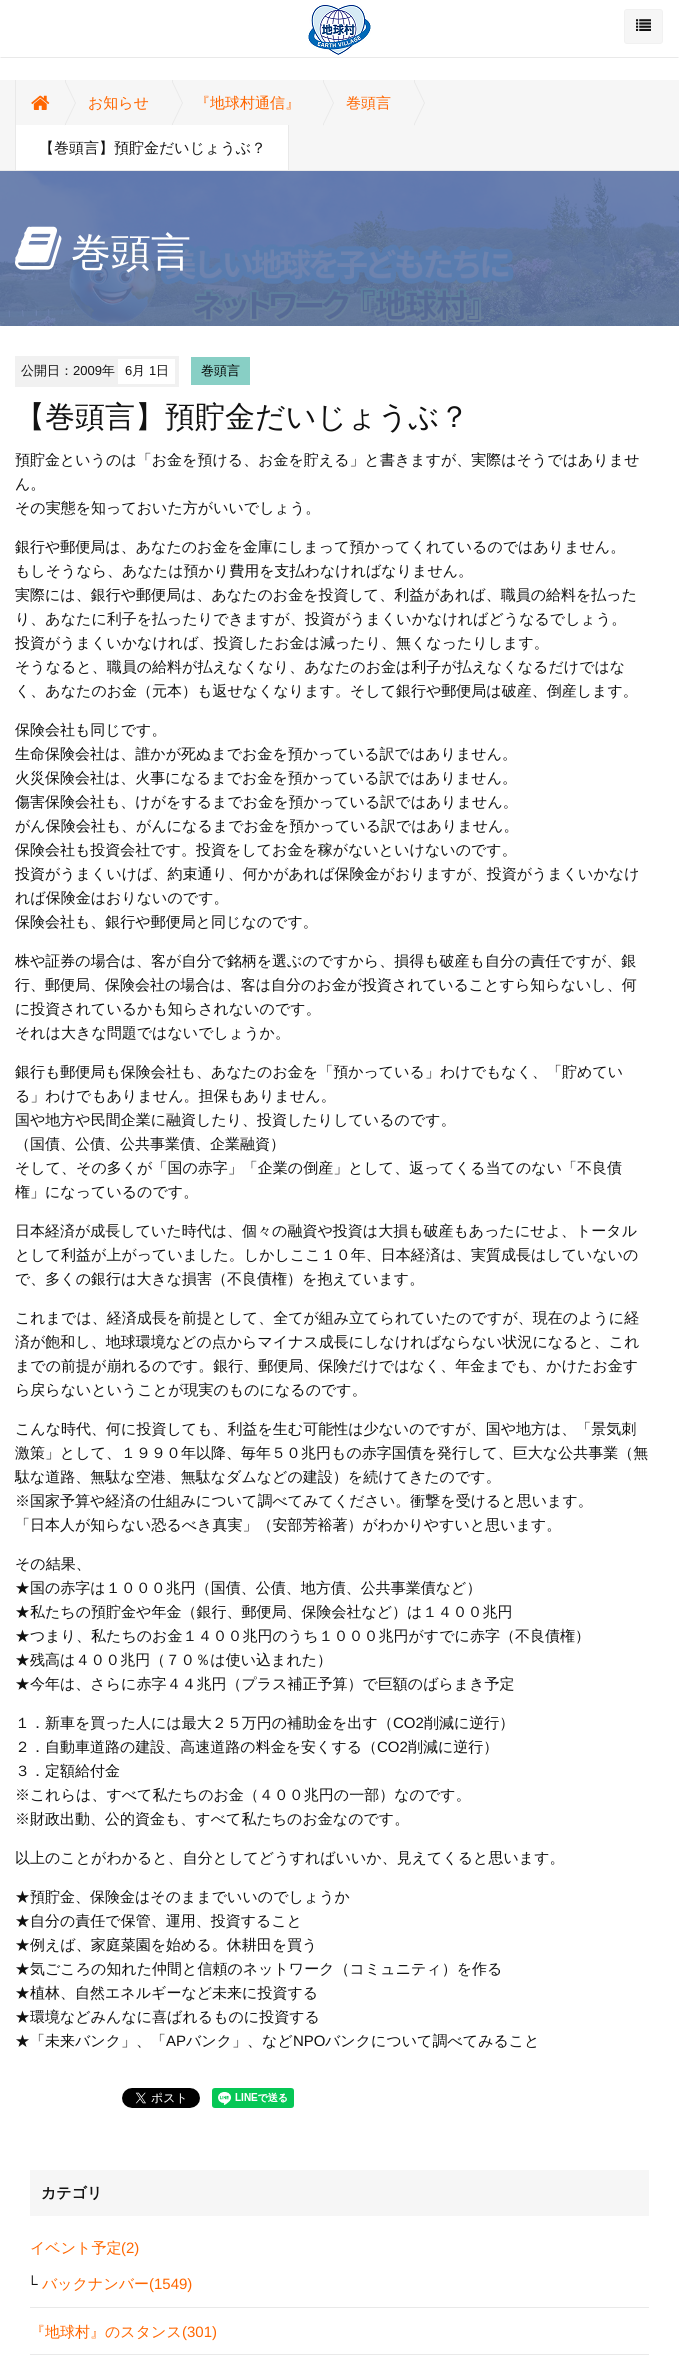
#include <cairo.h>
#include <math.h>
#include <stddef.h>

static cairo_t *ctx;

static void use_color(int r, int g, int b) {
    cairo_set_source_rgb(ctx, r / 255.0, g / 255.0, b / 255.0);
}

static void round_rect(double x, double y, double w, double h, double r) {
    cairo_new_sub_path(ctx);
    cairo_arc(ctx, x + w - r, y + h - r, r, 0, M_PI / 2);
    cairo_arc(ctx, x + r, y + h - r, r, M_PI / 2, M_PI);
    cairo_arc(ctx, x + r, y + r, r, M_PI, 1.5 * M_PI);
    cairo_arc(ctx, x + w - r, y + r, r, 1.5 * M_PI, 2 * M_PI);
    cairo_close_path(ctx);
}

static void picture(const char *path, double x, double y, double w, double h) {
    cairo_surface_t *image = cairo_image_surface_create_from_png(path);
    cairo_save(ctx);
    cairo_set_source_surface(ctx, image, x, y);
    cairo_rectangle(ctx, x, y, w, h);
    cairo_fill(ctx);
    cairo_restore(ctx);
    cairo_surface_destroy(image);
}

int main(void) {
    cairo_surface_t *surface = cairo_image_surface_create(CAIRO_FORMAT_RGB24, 679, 2360);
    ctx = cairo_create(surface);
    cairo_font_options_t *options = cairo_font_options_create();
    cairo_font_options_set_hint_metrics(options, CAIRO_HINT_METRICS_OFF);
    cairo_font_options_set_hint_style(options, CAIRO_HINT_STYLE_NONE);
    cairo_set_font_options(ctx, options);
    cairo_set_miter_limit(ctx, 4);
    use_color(255, 255, 255);
    cairo_paint(ctx);
    use_color(233, 233, 233);
    cairo_new_path(ctx);
    cairo_move_to(ctx, 679, 58);
    cairo_line_to(ctx, 0, 58);
    cairo_line_to(ctx, 1, 57);
    cairo_line_to(ctx, 678, 57);
    cairo_close_path(ctx);
    cairo_fill(ctx);
    picture("img1.png", 308, 5, 63, 50);
    use_color(246, 246, 246);
    round_rect(624.5, 9.5, 38, 34, 2.5);
    cairo_fill_preserve(ctx);
    use_color(241, 241, 241);
    cairo_set_line_width(ctx, 1);
    cairo_stroke(ctx);
    picture("img2.png", 636, 19, 15, 12);
    use_color(246, 246, 246);
    cairo_rectangle(ctx, 0, 80, 679, 90);
    cairo_fill(ctx);
    use_color(233, 233, 233);
    cairo_rectangle(ctx, 0, 170, 679, 1);
    cairo_fill(ctx);
    cairo_rectangle(ctx, 15, 80, 1, 90);
    cairo_fill(ctx);
    cairo_rectangle(ctx, 65, 80, 1, 45);
    cairo_fill(ctx);
    cairo_new_path(ctx);
    cairo_move_to(ctx, 65, 126);
    cairo_line_to(ctx, 65, 80);
    cairo_line_to(ctx, 76, 103);
    cairo_close_path(ctx);
    cairo_fill(ctx);
    cairo_rectangle(ctx, 172, 80, 1, 45);
    cairo_fill(ctx);
    cairo_new_path(ctx);
    cairo_move_to(ctx, 172, 126);
    cairo_line_to(ctx, 172, 80);
    cairo_line_to(ctx, 183, 103);
    cairo_close_path(ctx);
    cairo_fill(ctx);
    use_color(255, 255, 255);
    cairo_rectangle(ctx, 16, 125, 272, 45);
    cairo_fill(ctx);
    use_color(246, 246, 246);
    cairo_new_path(ctx);
    cairo_move_to(ctx, 64, 126);
    cairo_line_to(ctx, 64, 80);
    cairo_line_to(ctx, 75, 103);
    cairo_close_path(ctx);
    cairo_fill(ctx);
    picture("img3.png", 31, 95, 19, 15);
    cairo_new_path(ctx);
    cairo_move_to(ctx, 171, 126);
    cairo_line_to(ctx, 171, 80);
    cairo_line_to(ctx, 182, 103);
    cairo_close_path(ctx);
    cairo_fill(ctx);
    cairo_select_font_face(ctx, "WenQuanYi Zen Hei Medium", CAIRO_FONT_SLANT_NORMAL, CAIRO_FONT_WEIGHT_NORMAL);
    cairo_set_font_size(ctx, 15);
    use_color(255, 102, 0);
    cairo_move_to(ctx, 88, 108);
    cairo_show_text(ctx, "お知らせ");
    use_color(233, 233, 233);
    cairo_rectangle(ctx, 323, 80, 1, 45);
    cairo_fill(ctx);
    cairo_new_path(ctx);
    cairo_move_to(ctx, 323, 126);
    cairo_line_to(ctx, 323, 80);
    cairo_line_to(ctx, 334, 103);
    cairo_close_path(ctx);
    cairo_fill(ctx);
    use_color(246, 246, 246);
    cairo_new_path(ctx);
    cairo_move_to(ctx, 322, 126);
    cairo_line_to(ctx, 322, 80);
    cairo_line_to(ctx, 333, 103);
    cairo_close_path(ctx);
    cairo_fill(ctx);
    use_color(255, 102, 0);
    cairo_move_to(ctx, 195, 108);
    cairo_show_text(ctx, "『地球村通信』");
    use_color(233, 233, 233);
    cairo_rectangle(ctx, 414, 80, 1, 45);
    cairo_fill(ctx);
    cairo_new_path(ctx);
    cairo_move_to(ctx, 414, 126);
    cairo_line_to(ctx, 414, 80);
    cairo_line_to(ctx, 425, 103);
    cairo_close_path(ctx);
    cairo_fill(ctx);
    use_color(246, 246, 246);
    cairo_new_path(ctx);
    cairo_move_to(ctx, 413, 126);
    cairo_line_to(ctx, 413, 80);
    cairo_line_to(ctx, 424, 103);
    cairo_close_path(ctx);
    cairo_fill(ctx);
    use_color(255, 102, 0);
    cairo_move_to(ctx, 346, 108);
    cairo_show_text(ctx, "巻頭言");
    use_color(233, 233, 233);
    cairo_rectangle(ctx, 288, 125, 1, 45);
    cairo_fill(ctx);
    use_color(17, 17, 17);
    cairo_move_to(ctx, 39, 153);
    cairo_show_text(ctx, "【巻頭言】預貯金だいじょうぶ？");
    picture("img4.png", 0, 171, 679, 155);
    picture("img5.png", 15, 226, 47, 44);
    cairo_set_font_size(ctx, 40);
    use_color(255, 255, 255);
    cairo_move_to(ctx, 71, 266);
    cairo_show_text(ctx, "巻頭言");
    use_color(241, 241, 241);
    cairo_rectangle(ctx, 15, 356, 164, 31);
    cairo_fill(ctx);
    cairo_set_font_size(ctx, 13);
    use_color(17, 17, 17);
    cairo_move_to(ctx, 21, 375);
    cairo_show_text(ctx, "公開日：");
    cairo_select_font_face(ctx, "Liberation Sans", CAIRO_FONT_SLANT_NORMAL, CAIRO_FONT_WEIGHT_NORMAL);
    cairo_move_to(ctx, 73, 375);
    cairo_show_text(ctx, "2009");
    cairo_select_font_face(ctx, "WenQuanYi Zen Hei Medium", CAIRO_FONT_SLANT_NORMAL, CAIRO_FONT_WEIGHT_NORMAL);
    cairo_move_to(ctx, 102, 375);
    cairo_show_text(ctx, "年");
    use_color(255, 255, 255);
    cairo_rectangle(ctx, 118, 359, 57, 25);
    cairo_fill(ctx);
    cairo_select_font_face(ctx, "Liberation Sans", CAIRO_FONT_SLANT_NORMAL, CAIRO_FONT_WEIGHT_NORMAL);
    use_color(17, 17, 17);
    cairo_move_to(ctx, 125, 375);
    cairo_show_text(ctx, "6");
    cairo_select_font_face(ctx, "WenQuanYi Zen Hei Medium", CAIRO_FONT_SLANT_NORMAL, CAIRO_FONT_WEIGHT_NORMAL);
    cairo_move_to(ctx, 132, 375);
    cairo_show_text(ctx, "月");
    cairo_select_font_face(ctx, "Liberation Sans", CAIRO_FONT_SLANT_NORMAL, CAIRO_FONT_WEIGHT_NORMAL);
    cairo_move_to(ctx, 149, 375);
    cairo_show_text(ctx, "1");
    cairo_select_font_face(ctx, "WenQuanYi Zen Hei Medium", CAIRO_FONT_SLANT_NORMAL, CAIRO_FONT_WEIGHT_NORMAL);
    cairo_move_to(ctx, 156, 375);
    cairo_show_text(ctx, "日");
    use_color(136, 207, 197);
    cairo_rectangle(ctx, 191, 357, 59, 28);
    cairo_fill(ctx);
    use_color(0, 0, 0);
    cairo_move_to(ctx, 201, 375);
    cairo_show_text(ctx, "巻頭言");
    cairo_set_font_size(ctx, 30);
    use_color(17, 17, 17);
    cairo_move_to(ctx, 15, 427);
    cairo_show_text(ctx, "【巻頭言】預貯金だいじょうぶ？");
    cairo_set_font_size(ctx, 15);
    cairo_move_to(ctx, 15, 465);
    cairo_show_text(ctx, "預貯金というのは「お金を預ける、お金を貯える」と書きますが、実際はそうではありませ");
    cairo_move_to(ctx, 15, 489);
    cairo_show_text(ctx, "ん。");
    cairo_move_to(ctx, 15, 513);
    cairo_show_text(ctx, "その実態を知っておいた方がいいでしょう。");
    cairo_move_to(ctx, 15, 552);
    cairo_show_text(ctx, "銀行や郵便局は、あなたのお金を金庫にしまって預かってくれているのではありません。");
    cairo_move_to(ctx, 15, 576);
    cairo_show_text(ctx, "もしそうなら、あなたは預かり費用を支払わなければなりません。");
    cairo_move_to(ctx, 15, 600);
    cairo_show_text(ctx, "実際には、銀行や郵便局は、あなたのお金を投資して、利益があれば、職員の給料を払った");
    cairo_move_to(ctx, 15, 624);
    cairo_show_text(ctx, "り、あなたに利子を払ったりできますが、投資がうまくいかなければどうなるでしょう。");
    cairo_move_to(ctx, 15, 648);
    cairo_show_text(ctx, "投資がうまくいかなければ、投資したお金は減ったり、無くなったりします。");
    cairo_move_to(ctx, 15, 672);
    cairo_show_text(ctx, "そうなると、職員の給料が払えなくなり、あなたのお金は利子が払えなくなるだけではな");
    cairo_move_to(ctx, 15, 696);
    cairo_show_text(ctx, "く、あなたのお金（元本）も返せなくなります。そして銀行や郵便局は破産、倒産します。");
    cairo_move_to(ctx, 15, 735);
    cairo_show_text(ctx, "保険会社も同じです。");
    cairo_move_to(ctx, 15, 759);
    cairo_show_text(ctx, "生命保険会社は、誰かが死ぬまでお金を預かっている訳ではありません。");
    cairo_move_to(ctx, 15, 783);
    cairo_show_text(ctx, "火災保険会社は、火事になるまでお金を預かっている訳ではありません。");
    cairo_move_to(ctx, 15, 807);
    cairo_show_text(ctx, "傷害保険会社も、けがをするまでお金を預かっている訳ではありません。");
    cairo_move_to(ctx, 15, 831);
    cairo_show_text(ctx, "がん保険会社も、がんになるまでお金を預かっている訳ではありません。");
    cairo_move_to(ctx, 15, 855);
    cairo_show_text(ctx, "保険会社も投資会社です。投資をしてお金を稼がないといけないのです。");
    cairo_move_to(ctx, 15, 879);
    cairo_show_text(ctx, "投資がうまくいけば、約束通り、何かがあれば保険金がおりますが、投資がうまくいかなけ");
    cairo_move_to(ctx, 15, 903);
    cairo_show_text(ctx, "れば保険金はおりないのです。");
    cairo_move_to(ctx, 15, 927);
    cairo_show_text(ctx, "保険会社も、銀行や郵便局と同じなのです。");
    cairo_move_to(ctx, 15, 966);
    cairo_show_text(ctx, "株や証券の場合は、客が自分で銘柄を選ぶのですから、損得も破産も自分の責任ですが、銀");
    cairo_move_to(ctx, 15, 990);
    cairo_show_text(ctx, "行、郵便局、保険会社の場合は、客は自分のお金が投資されていることすら知らないし、何");
    cairo_move_to(ctx, 15, 1014);
    cairo_show_text(ctx, "に投資されているかも知らされないのです。");
    cairo_move_to(ctx, 15, 1038);
    cairo_show_text(ctx, "それは大きな問題ではないでしょうか。");
    cairo_move_to(ctx, 15, 1077);
    cairo_show_text(ctx, "銀行も郵便局も保険会社も、あなたのお金を「預かっている」わけでもなく、「貯めてい");
    cairo_move_to(ctx, 15, 1101);
    cairo_show_text(ctx, "る」わけでもありません。担保もありません。");
    cairo_move_to(ctx, 15, 1125);
    cairo_show_text(ctx, "国や地方や民間企業に融資したり、投資したりしているのです。");
    cairo_move_to(ctx, 15, 1149);
    cairo_show_text(ctx, "（国債、公債、公共事業債、企業融資）");
    cairo_move_to(ctx, 15, 1173);
    cairo_show_text(ctx, "そして、その多くが「国の赤字」「企業の倒産」として、返ってくる当てのない「不良債");
    cairo_move_to(ctx, 15, 1197);
    cairo_show_text(ctx, "権」になっているのです。");
    cairo_move_to(ctx, 15, 1236);
    cairo_show_text(ctx, "日本経済が成長していた時代は、個々の融資や投資は大損も破産もあったにせよ、トータル");
    cairo_move_to(ctx, 15, 1260);
    cairo_show_text(ctx, "として利益が上がっていました。しかしここ１０年、日本経済は、実質成長はしていないの");
    cairo_move_to(ctx, 15, 1284);
    cairo_show_text(ctx, "で、多くの銀行は大きな損害（不良債権）を抱えています。");
    cairo_move_to(ctx, 15, 1323);
    cairo_show_text(ctx, "これまでは、経済成長を前提として、全てが組み立てられていたのですが、現在のように経");
    cairo_move_to(ctx, 15, 1347);
    cairo_show_text(ctx, "済が飽和し、地球環境などの点からマイナス成長にしなければならない状況になると、これ");
    cairo_move_to(ctx, 15, 1371);
    cairo_show_text(ctx, "までの前提が崩れるのです。銀行、郵便局、保険だけではなく、年金までも、かけたお金す");
    cairo_move_to(ctx, 15, 1395);
    cairo_show_text(ctx, "ら戻らないということが現実のものになるのです。");
    cairo_move_to(ctx, 15, 1434);
    cairo_show_text(ctx, "こんな時代、何に投資しても、利益を生む可能性は少ないのですが、国や地方は、「景気刺");
    cairo_move_to(ctx, 15, 1458);
    cairo_show_text(ctx, "激策」として、１９９０年以降、毎年５０兆円もの赤字国債を発行して、巨大な公共事業（無");
    cairo_move_to(ctx, 15, 1482);
    cairo_show_text(ctx, "駄な道路、無駄な空港、無駄なダムなどの建設）を続けてきたのです。");
    cairo_move_to(ctx, 15, 1506);
    cairo_show_text(ctx, "※国家予算や経済の仕組みについて調べてみてください。衝撃を受けると思います。");
    cairo_move_to(ctx, 15, 1530);
    cairo_show_text(ctx, "「日本人が知らない恐るべき真実」（安部芳裕著）がわかりやすいと思います。");
    cairo_move_to(ctx, 15, 1569);
    cairo_show_text(ctx, "その結果、");
    cairo_move_to(ctx, 15, 1593);
    cairo_show_text(ctx, "★国の赤字は１０００兆円（国債、公債、地方債、公共事業債など）");
    cairo_move_to(ctx, 15, 1617);
    cairo_show_text(ctx, "★私たちの預貯金や年金（銀行、郵便局、保険会社など）は１４００兆円");
    cairo_move_to(ctx, 15, 1641);
    cairo_show_text(ctx, "★つまり、私たちのお金１４００兆円のうち１０００兆円がすでに赤字（不良債権）");
    cairo_move_to(ctx, 15, 1665);
    cairo_show_text(ctx, "★残高は４００兆円（７０％は使い込まれた）");
    cairo_move_to(ctx, 15, 1689);
    cairo_show_text(ctx, "★今年は、さらに赤字４４兆円（プラス補正予算）で巨額のばらまき予定");
    cairo_move_to(ctx, 15, 1728);
    cairo_show_text(ctx, "１．新車を買った人には最大２５万円の補助金を出す（");
    cairo_select_font_face(ctx, "Liberation Sans", CAIRO_FONT_SLANT_NORMAL, CAIRO_FONT_WEIGHT_NORMAL);
    cairo_move_to(ctx, 393, 1728);
    cairo_show_text(ctx, "CO2");
    cairo_select_font_face(ctx, "WenQuanYi Zen Hei Medium", CAIRO_FONT_SLANT_NORMAL, CAIRO_FONT_WEIGHT_NORMAL);
    cairo_move_to(ctx, 424, 1728);
    cairo_show_text(ctx, "削減に逆行）");
    cairo_move_to(ctx, 15, 1752);
    cairo_show_text(ctx, "２．自動車道路の建設、高速道路の料金を安くする（");
    cairo_select_font_face(ctx, "Liberation Sans", CAIRO_FONT_SLANT_NORMAL, CAIRO_FONT_WEIGHT_NORMAL);
    cairo_move_to(ctx, 377, 1752);
    cairo_show_text(ctx, "CO2");
    cairo_select_font_face(ctx, "WenQuanYi Zen Hei Medium", CAIRO_FONT_SLANT_NORMAL, CAIRO_FONT_WEIGHT_NORMAL);
    cairo_move_to(ctx, 408, 1752);
    cairo_show_text(ctx, "削減に逆行）");
    cairo_move_to(ctx, 15, 1776);
    cairo_show_text(ctx, "３．定額給付金");
    cairo_move_to(ctx, 15, 1800);
    cairo_show_text(ctx, "※これらは、すべて私たちのお金（４００兆円の一部）なのです。");
    cairo_move_to(ctx, 15, 1824);
    cairo_show_text(ctx, "※財政出動、公的資金も、すべて私たちのお金なのです。");
    cairo_move_to(ctx, 15, 1863);
    cairo_show_text(ctx, "以上のことがわかると、自分としてどうすればいいか、見えてくると思います。");
    cairo_move_to(ctx, 15, 1902);
    cairo_show_text(ctx, "★預貯金、保険金はそのままでいいのでしょうか");
    cairo_move_to(ctx, 15, 1926);
    cairo_show_text(ctx, "★自分の責任で保管、運用、投資すること");
    cairo_move_to(ctx, 15, 1950);
    cairo_show_text(ctx, "★例えば、家庭菜園を始める。休耕田を買う");
    cairo_move_to(ctx, 15, 1974);
    cairo_show_text(ctx, "★気ごころの知れた仲間と信頼のネットワーク（コミュニティ）を作る");
    cairo_move_to(ctx, 15, 1998);
    cairo_show_text(ctx, "★植林、自然エネルギーなど未来に投資する");
    cairo_move_to(ctx, 15, 2022);
    cairo_show_text(ctx, "★環境などみんなに喜ばれるものに投資する");
    cairo_move_to(ctx, 15, 2046);
    cairo_show_text(ctx, "★「未来バンク」、「");
    cairo_select_font_face(ctx, "Liberation Sans", CAIRO_FONT_SLANT_NORMAL, CAIRO_FONT_WEIGHT_NORMAL);
    cairo_move_to(ctx, 166, 2046);
    cairo_show_text(ctx, "AP");
    cairo_select_font_face(ctx, "WenQuanYi Zen Hei Medium", CAIRO_FONT_SLANT_NORMAL, CAIRO_FONT_WEIGHT_NORMAL);
    cairo_move_to(ctx, 186, 2046);
    cairo_show_text(ctx, "バンク」、など");
    cairo_select_font_face(ctx, "Liberation Sans", CAIRO_FONT_SLANT_NORMAL, CAIRO_FONT_WEIGHT_NORMAL);
    cairo_move_to(ctx, 293, 2046);
    cairo_show_text(ctx, "NPO");
    cairo_select_font_face(ctx, "WenQuanYi Zen Hei Medium", CAIRO_FONT_SLANT_NORMAL, CAIRO_FONT_WEIGHT_NORMAL);
    cairo_move_to(ctx, 325, 2046);
    cairo_show_text(ctx, "バンクについて調べてみること");
    picture("img6.png", 122, 2088, 78, 20);
    picture("img7.png", 212, 2088, 82, 20);
    use_color(246, 246, 246);
    cairo_rectangle(ctx, 30, 2170, 619, 46);
    cairo_fill(ctx);
    cairo_select_font_face(ctx, "WenQuanYi Zen Hei", CAIRO_FONT_SLANT_NORMAL, CAIRO_FONT_WEIGHT_BOLD);
    use_color(17, 17, 17);
    cairo_move_to(ctx, 41, 2198);
    cairo_show_text(ctx, "カテゴリ");
    use_color(233, 233, 233);
    cairo_rectangle(ctx, 30, 2307, 619, 1);
    cairo_fill(ctx);
    cairo_select_font_face(ctx, "WenQuanYi Zen Hei Medium", CAIRO_FONT_SLANT_NORMAL, CAIRO_FONT_WEIGHT_NORMAL);
    use_color(255, 102, 0);
    cairo_move_to(ctx, 30, 2253);
    cairo_show_text(ctx, "イベント予定");
    cairo_select_font_face(ctx, "Liberation Sans", CAIRO_FONT_SLANT_NORMAL, CAIRO_FONT_WEIGHT_NORMAL);
    cairo_move_to(ctx, 121, 2253);
    cairo_show_text(ctx, "(2)");
    use_color(17, 17, 17);
    cairo_move_to(ctx, 27, 2289);
    cairo_show_text(ctx, "└");
    cairo_select_font_face(ctx, "WenQuanYi Zen Hei Medium", CAIRO_FONT_SLANT_NORMAL, CAIRO_FONT_WEIGHT_NORMAL);
    use_color(255, 102, 0);
    cairo_move_to(ctx, 42, 2289);
    cairo_show_text(ctx, "バックナンバー");
    cairo_select_font_face(ctx, "Liberation Sans", CAIRO_FONT_SLANT_NORMAL, CAIRO_FONT_WEIGHT_NORMAL);
    cairo_move_to(ctx, 149, 2289);
    cairo_show_text(ctx, "(1549)");
    use_color(233, 233, 233);
    cairo_rectangle(ctx, 30, 2354, 619, 1);
    cairo_fill(ctx);
    cairo_select_font_face(ctx, "WenQuanYi Zen Hei Medium", CAIRO_FONT_SLANT_NORMAL, CAIRO_FONT_WEIGHT_NORMAL);
    use_color(255, 102, 0);
    cairo_move_to(ctx, 30, 2337);
    cairo_show_text(ctx, "『地球村』のスタンス");
    cairo_select_font_face(ctx, "Liberation Sans", CAIRO_FONT_SLANT_NORMAL, CAIRO_FONT_WEIGHT_NORMAL);
    cairo_move_to(ctx, 182, 2337);
    cairo_show_text(ctx, "(301)");
    cairo_surface_write_to_png(surface, "result.png");
    cairo_font_options_destroy(options);
    cairo_destroy(ctx);
    cairo_surface_destroy(surface);
    return 0;
}
